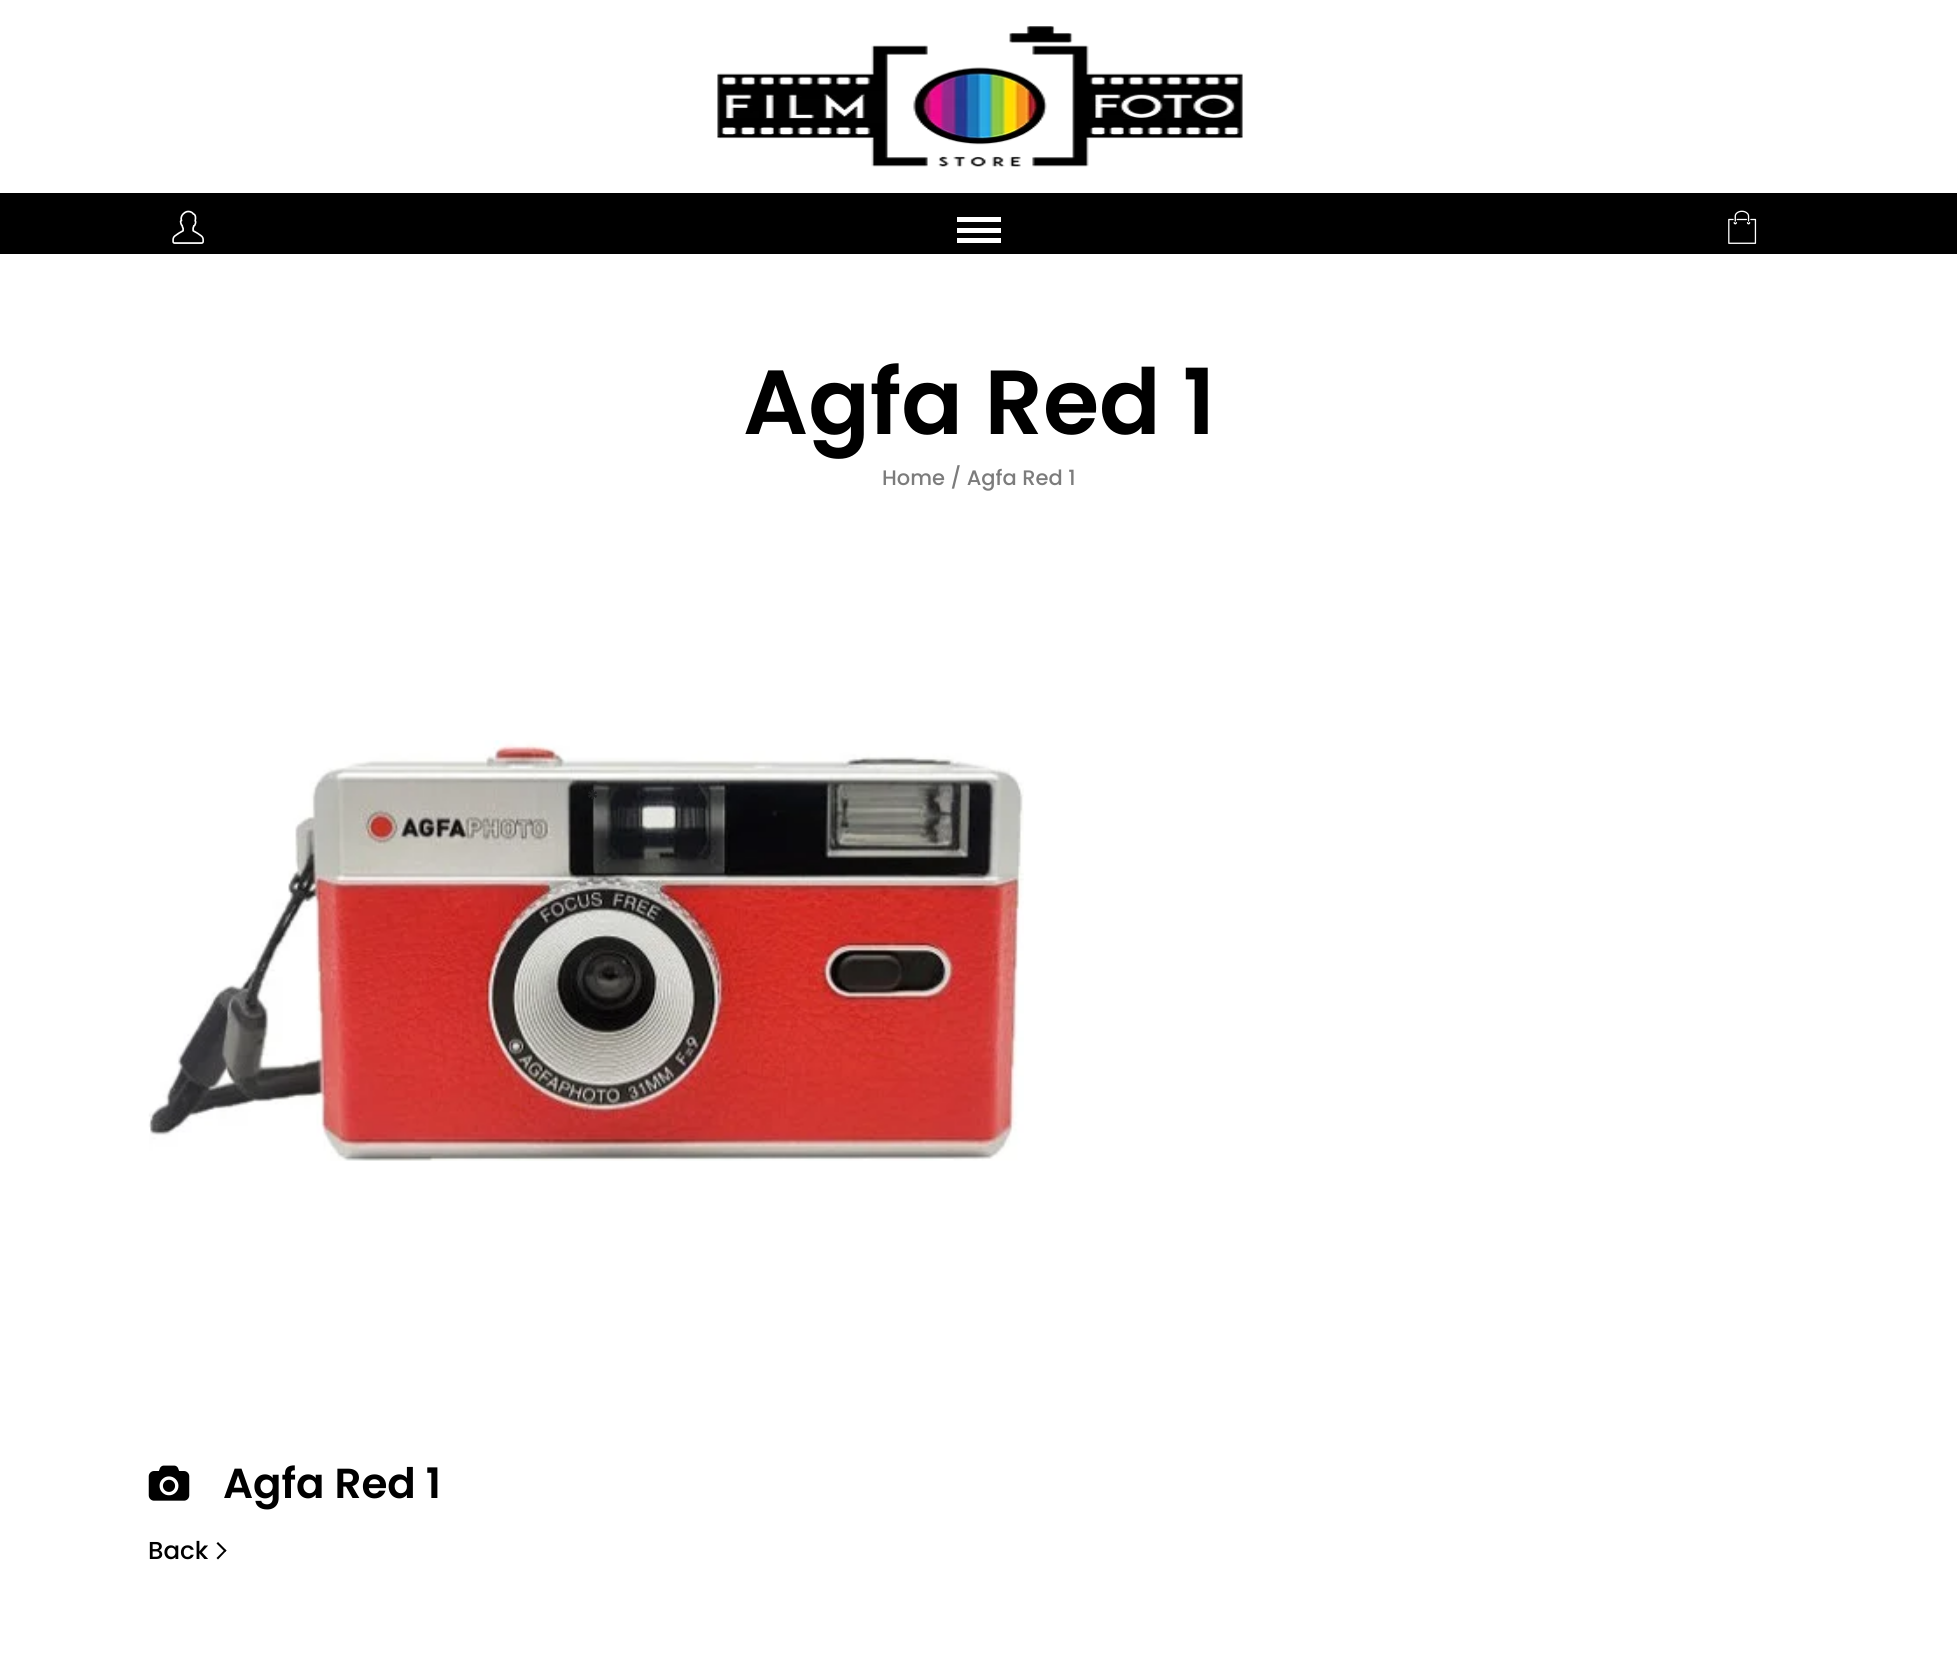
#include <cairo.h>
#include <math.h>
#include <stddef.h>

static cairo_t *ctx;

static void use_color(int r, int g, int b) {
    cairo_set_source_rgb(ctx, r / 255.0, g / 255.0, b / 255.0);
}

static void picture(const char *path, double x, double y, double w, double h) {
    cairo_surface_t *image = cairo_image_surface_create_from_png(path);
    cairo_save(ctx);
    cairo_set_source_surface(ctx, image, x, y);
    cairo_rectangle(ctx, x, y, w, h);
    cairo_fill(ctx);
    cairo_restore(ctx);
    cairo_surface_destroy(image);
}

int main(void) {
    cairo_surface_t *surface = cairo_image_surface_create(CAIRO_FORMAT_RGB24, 1957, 1671);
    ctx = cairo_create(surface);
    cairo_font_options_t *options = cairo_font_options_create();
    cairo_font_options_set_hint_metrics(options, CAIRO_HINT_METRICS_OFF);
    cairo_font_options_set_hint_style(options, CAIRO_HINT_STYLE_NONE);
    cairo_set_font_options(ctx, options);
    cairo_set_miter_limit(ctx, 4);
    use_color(255, 255, 255);
    cairo_paint(ctx);
    picture("img1.png", 717, 26, 526, 141);
    use_color(0, 0, 0);
    cairo_rectangle(ctx, 0, 193, 1957, 61);
    cairo_fill(ctx);
    picture("img2.png", 172, 210, 32, 34);
    use_color(255, 255, 255);
    cairo_rectangle(ctx, 957, 228, 44, 5);
    cairo_fill(ctx);
    cairo_rectangle(ctx, 957, 217, 44, 5);
    cairo_fill(ctx);
    cairo_rectangle(ctx, 957, 238, 44, 5);
    cairo_fill(ctx);
    picture("img3.png", 1728, 210, 29, 34);
    cairo_select_font_face(ctx, "Poppins SemiBold", CAIRO_FONT_SLANT_NORMAL, CAIRO_FONT_WEIGHT_NORMAL);
    cairo_set_font_size(ctx, 91);
    use_color(0, 0, 0);
    cairo_move_to(ctx, 743, 434);
    cairo_show_text(ctx, "Agfa Red 1");
    cairo_select_font_face(ctx, "Poppins Medium", CAIRO_FONT_SLANT_NORMAL, CAIRO_FONT_WEIGHT_NORMAL);
    cairo_set_font_size(ctx, 21);
    use_color(124, 124, 124);
    cairo_move_to(ctx, 882, 485);
    cairo_show_text(ctx, "Home / Agfa Red 1");
    picture("img4.png", 148, 740, 876, 421);
    cairo_select_font_face(ctx, "Poppins", CAIRO_FONT_SLANT_NORMAL, CAIRO_FONT_WEIGHT_BOLD);
    cairo_set_font_size(ctx, 24.5);
    use_color(31, 32, 33);
    cairo_move_to(ctx, 586, 808);
    cairo_show_text(ctx, "*");
    picture("img5.png", 148, 1465, 42, 36);
    cairo_select_font_face(ctx, "Poppins SemiBold", CAIRO_FONT_SLANT_NORMAL, CAIRO_FONT_WEIGHT_NORMAL);
    cairo_set_font_size(ctx, 42);
    use_color(0, 0, 0);
    cairo_move_to(ctx, 223, 1498);
    cairo_show_text(ctx, "Agfa Red 1");
    cairo_select_font_face(ctx, "Poppins Medium", CAIRO_FONT_SLANT_NORMAL, CAIRO_FONT_WEIGHT_NORMAL);
    cairo_set_font_size(ctx, 24.5);
    cairo_move_to(ctx, 148, 1559);
    cairo_show_text(ctx, "Back");
    cairo_new_path(ctx);
    cairo_move_to(ctx, 216.5, 1543.5);
    cairo_line_to(ctx, 218, 1542);
    cairo_line_to(ctx, 226.5, 1550.5);
    cairo_line_to(ctx, 225, 1552);
    cairo_close_path(ctx);
    cairo_fill(ctx);
    cairo_new_path(ctx);
    cairo_move_to(ctx, 216.5, 1558);
    cairo_line_to(ctx, 225, 1549.5);
    cairo_line_to(ctx, 226.5, 1550.5);
    cairo_line_to(ctx, 218, 1559.5);
    cairo_close_path(ctx);
    cairo_fill(ctx);
    cairo_surface_write_to_png(surface, "result.png");
    cairo_font_options_destroy(options);
    cairo_destroy(ctx);
    cairo_surface_destroy(surface);
    return 0;
}
